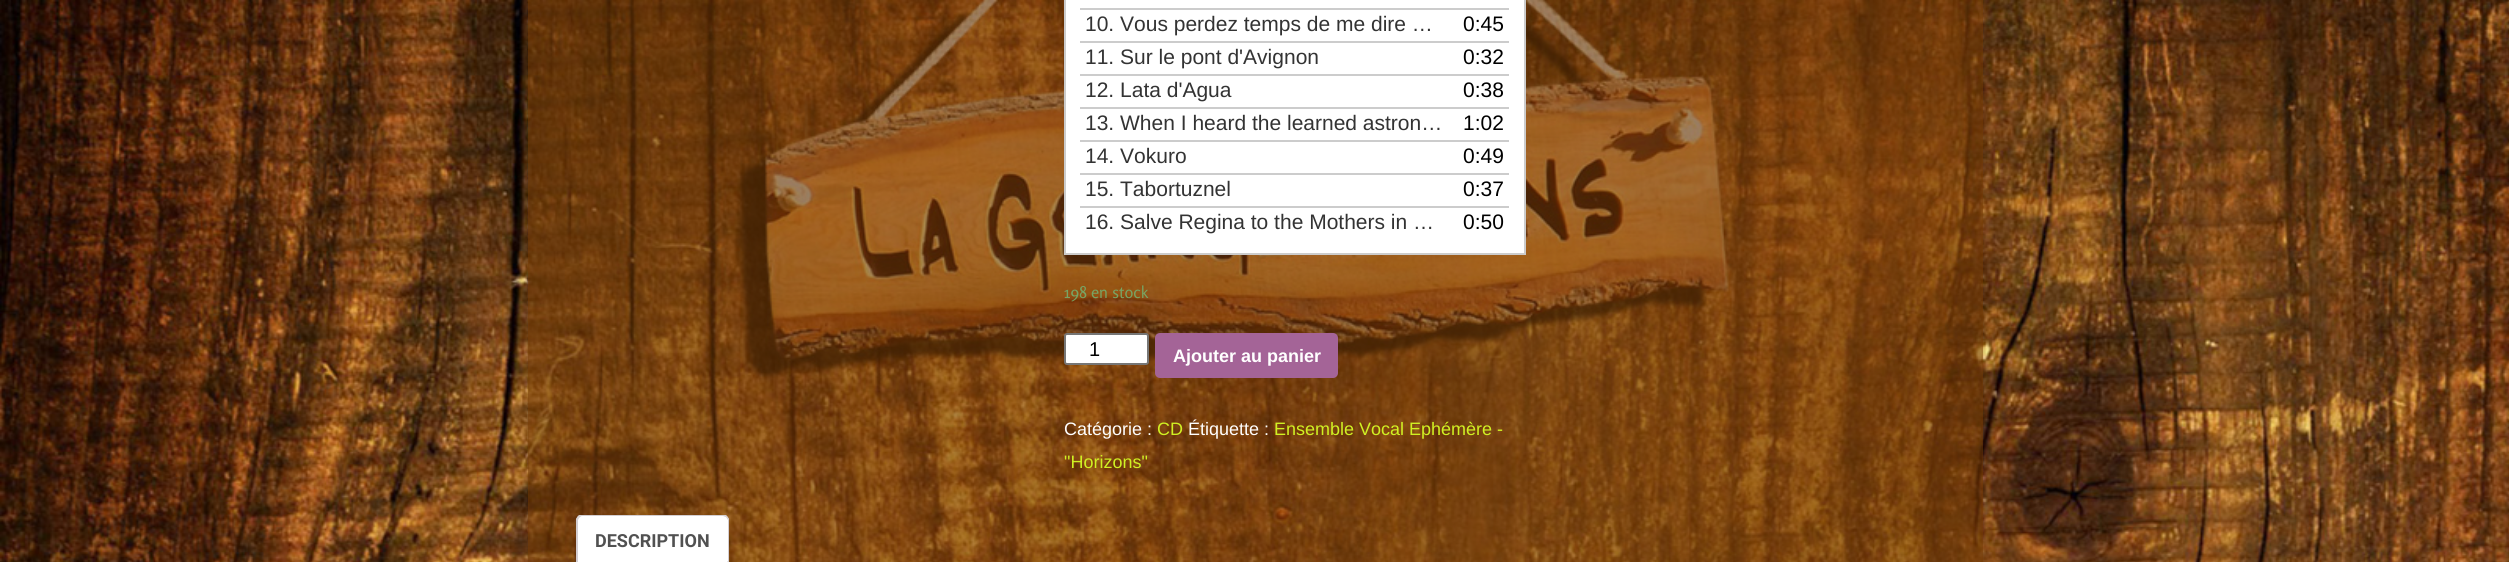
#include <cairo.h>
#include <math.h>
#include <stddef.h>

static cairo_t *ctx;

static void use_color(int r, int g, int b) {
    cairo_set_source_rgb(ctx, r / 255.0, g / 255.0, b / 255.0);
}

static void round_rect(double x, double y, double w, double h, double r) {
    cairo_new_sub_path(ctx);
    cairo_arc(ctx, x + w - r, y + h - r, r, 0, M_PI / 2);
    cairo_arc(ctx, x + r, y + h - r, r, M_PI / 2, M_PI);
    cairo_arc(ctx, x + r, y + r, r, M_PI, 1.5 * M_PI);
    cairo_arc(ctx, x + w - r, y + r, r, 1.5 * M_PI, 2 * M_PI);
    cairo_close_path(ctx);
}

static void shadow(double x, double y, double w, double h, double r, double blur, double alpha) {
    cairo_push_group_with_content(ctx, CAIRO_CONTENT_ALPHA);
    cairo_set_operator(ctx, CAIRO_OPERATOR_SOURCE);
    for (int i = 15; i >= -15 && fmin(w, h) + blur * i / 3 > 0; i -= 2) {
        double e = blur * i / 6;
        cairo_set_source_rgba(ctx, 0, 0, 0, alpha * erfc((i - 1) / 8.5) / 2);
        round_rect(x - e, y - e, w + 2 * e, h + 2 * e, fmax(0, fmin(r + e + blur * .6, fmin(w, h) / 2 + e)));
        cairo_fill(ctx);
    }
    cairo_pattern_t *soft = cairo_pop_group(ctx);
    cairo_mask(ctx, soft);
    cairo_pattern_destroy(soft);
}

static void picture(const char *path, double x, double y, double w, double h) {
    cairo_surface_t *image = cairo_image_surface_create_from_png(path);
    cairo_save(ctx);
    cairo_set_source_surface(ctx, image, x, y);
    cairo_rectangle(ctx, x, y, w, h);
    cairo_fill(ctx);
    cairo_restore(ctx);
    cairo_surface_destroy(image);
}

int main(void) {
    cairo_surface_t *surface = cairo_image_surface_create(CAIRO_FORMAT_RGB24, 2509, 562);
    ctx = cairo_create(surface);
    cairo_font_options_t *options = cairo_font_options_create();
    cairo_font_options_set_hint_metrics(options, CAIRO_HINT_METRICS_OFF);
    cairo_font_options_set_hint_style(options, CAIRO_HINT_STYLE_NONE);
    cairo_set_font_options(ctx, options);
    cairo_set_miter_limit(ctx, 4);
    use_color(255, 255, 255);
    cairo_paint(ctx);
    picture("img1.png", 0, 0, 2509, 562);
    cairo_save(ctx);
    cairo_set_fill_rule(ctx, CAIRO_FILL_RULE_EVEN_ODD);
    cairo_new_path(ctx);
    cairo_move_to(ctx, 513, 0);
    cairo_line_to(ctx, 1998, 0);
    cairo_line_to(ctx, 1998, 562);
    cairo_line_to(ctx, 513, 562);
    cairo_close_path(ctx);
    cairo_move_to(ctx, 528, -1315);
    cairo_line_to(ctx, 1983, -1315);
    cairo_line_to(ctx, 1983, 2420);
    cairo_line_to(ctx, 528, 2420);
    cairo_close_path(ctx);
    cairo_clip(ctx);
    use_color(0, 0, 0);
    shadow(528, -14, 1455, 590, 0, 4.5, 0.15);
    cairo_restore(ctx);
    cairo_set_source_rgba(ctx, 0.439, 0.22, 0.016, 0.56);
    cairo_rectangle(ctx, 528, 0, 1455, 562);
    cairo_fill(ctx);
    use_color(255, 255, 255);
    cairo_rectangle(ctx, 1065, -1, 460, 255);
    cairo_fill_preserve(ctx);
    use_color(204, 204, 204);
    cairo_stroke(ctx);
    cairo_rectangle(ctx, 1080, 8, 429, 2);
    cairo_fill(ctx);
    cairo_rectangle(ctx, 1080, 41, 429, 2);
    cairo_fill(ctx);
    cairo_select_font_face(ctx, "Liberation Sans", CAIRO_FONT_SLANT_NORMAL, CAIRO_FONT_WEIGHT_NORMAL);
    cairo_set_font_size(ctx, 21);
    use_color(51, 51, 51);
    cairo_move_to(ctx, 1085, 31);
    cairo_show_text(ctx, "10. Vous perdez temps de me dire …");
    use_color(0, 0, 0);
    cairo_move_to(ctx, 1463, 31);
    cairo_show_text(ctx, "0:45");
    use_color(204, 204, 204);
    cairo_rectangle(ctx, 1080, 74, 429, 2);
    cairo_fill(ctx);
    use_color(51, 51, 51);
    cairo_move_to(ctx, 1085, 64);
    cairo_show_text(ctx, "11. Sur le pont d'Avignon");
    use_color(0, 0, 0);
    cairo_move_to(ctx, 1463, 64);
    cairo_show_text(ctx, "0:32");
    use_color(204, 204, 204);
    cairo_rectangle(ctx, 1080, 107, 429, 2);
    cairo_fill(ctx);
    use_color(51, 51, 51);
    cairo_move_to(ctx, 1085, 97);
    cairo_show_text(ctx, "12. Lata d'Agua");
    use_color(0, 0, 0);
    cairo_move_to(ctx, 1463, 97);
    cairo_show_text(ctx, "0:38");
    use_color(204, 204, 204);
    cairo_rectangle(ctx, 1080, 140, 429, 2);
    cairo_fill(ctx);
    use_color(51, 51, 51);
    cairo_move_to(ctx, 1085, 130);
    cairo_show_text(ctx, "13. When I heard the learned astron…");
    use_color(0, 0, 0);
    cairo_move_to(ctx, 1463, 130);
    cairo_show_text(ctx, "1:02");
    use_color(204, 204, 204);
    cairo_rectangle(ctx, 1080, 173, 429, 2);
    cairo_fill(ctx);
    use_color(51, 51, 51);
    cairo_move_to(ctx, 1085, 163);
    cairo_show_text(ctx, "14. Vokuro");
    use_color(0, 0, 0);
    cairo_move_to(ctx, 1463, 163);
    cairo_show_text(ctx, "0:49");
    use_color(204, 204, 204);
    cairo_rectangle(ctx, 1080, 206, 429, 2);
    cairo_fill(ctx);
    use_color(51, 51, 51);
    cairo_move_to(ctx, 1085, 196);
    cairo_show_text(ctx, "15. Tabortuznel");
    use_color(0, 0, 0);
    cairo_move_to(ctx, 1463, 196);
    cairo_show_text(ctx, "0:37");
    use_color(51, 51, 51);
    cairo_move_to(ctx, 1085, 229);
    cairo_show_text(ctx, "16. Salve Regina to the Mothers in …");
    use_color(0, 0, 0);
    cairo_move_to(ctx, 1463, 229);
    cairo_show_text(ctx, "0:50");
    cairo_select_font_face(ctx, "Rosario", CAIRO_FONT_SLANT_NORMAL, CAIRO_FONT_WEIGHT_NORMAL);
    cairo_set_font_size(ctx, 16.5);
    use_color(119, 164, 100);
    cairo_move_to(ctx, 1064, 298);
    cairo_show_text(ctx, "198 en stock");
    use_color(255, 255, 255);
    round_rect(1065, 334, 83, 30, 2);
    cairo_fill_preserve(ctx);
    use_color(118, 118, 118);
    cairo_stroke(ctx);
    cairo_select_font_face(ctx, "Liberation Sans", CAIRO_FONT_SLANT_NORMAL, CAIRO_FONT_WEIGHT_NORMAL);
    cairo_set_font_size(ctx, 20);
    use_color(0, 0, 0);
    cairo_move_to(ctx, 1089, 356);
    cairo_show_text(ctx, "1");
    use_color(164, 100, 151);
    round_rect(1155, 333, 183, 45, 5);
    cairo_fill(ctx);
    cairo_select_font_face(ctx, "Liberation Sans", CAIRO_FONT_SLANT_NORMAL, CAIRO_FONT_WEIGHT_BOLD);
    cairo_set_font_size(ctx, 18);
    use_color(255, 255, 255);
    cairo_move_to(ctx, 1173, 362);
    cairo_show_text(ctx, "Ajouter au panier");
    cairo_select_font_face(ctx, "Liberation Sans", CAIRO_FONT_SLANT_NORMAL, CAIRO_FONT_WEIGHT_NORMAL);
    cairo_move_to(ctx, 1064, 435);
    cairo_show_text(ctx, "Catégorie :");
    use_color(208, 241, 35);
    cairo_move_to(ctx, 1157, 435);
    cairo_show_text(ctx, "CD");
    use_color(255, 255, 255);
    cairo_move_to(ctx, 1188, 435);
    cairo_show_text(ctx, "Étiquette :");
    use_color(208, 241, 35);
    cairo_move_to(ctx, 1274, 435);
    cairo_show_text(ctx, "Ensemble Vocal Ephémère -");
    cairo_move_to(ctx, 1064, 468);
    cairo_show_text(ctx, "\"Horizons\"");
    use_color(255, 255, 255);
    cairo_new_path(ctx);
    cairo_move_to(ctx, 582, 515);
    cairo_line_to(ctx, 723, 515);
    cairo_curve_to(ctx, 726.5, 515, 729, 517.5, 729, 521);
    cairo_line_to(ctx, 729, 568);
    cairo_line_to(ctx, 576, 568);
    cairo_line_to(ctx, 576, 521);
    cairo_curve_to(ctx, 576, 517.5, 578.5, 515, 582, 515);
    cairo_close_path(ctx);
    cairo_fill(ctx);
    cairo_save(ctx);
    cairo_rectangle(ctx, 566, 515, 960, 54);
    cairo_clip(ctx);
    use_color(211, 206, 210);
    cairo_new_path(ctx);
    cairo_move_to(ctx, 582, 516);
    cairo_curve_to(ctx, 581, 516, 580, 517, 579, 518);
    cairo_line_to(ctx, 578, 516);
    cairo_line_to(ctx, 580, 514);
    cairo_line_to(ctx, 725, 514);
    cairo_line_to(ctx, 727, 516);
    cairo_line_to(ctx, 726, 517);
    cairo_line_to(ctx, 723, 516);
    cairo_close_path(ctx);
    cairo_fill(ctx);
    cairo_restore(ctx);
    use_color(211, 206, 210);
    cairo_new_path(ctx);
    cairo_move_to(ctx, 729, 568);
    cairo_line_to(ctx, 729, 520);
    cairo_curve_to(ctx, 729, 519, 728, 517, 727, 516);
    cairo_line_to(ctx, 726, 517);
    cairo_line_to(ctx, 728, 520);
    cairo_line_to(ctx, 728, 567);
    cairo_close_path(ctx);
    cairo_fill(ctx);
    cairo_new_path(ctx);
    cairo_move_to(ctx, 576, 520);
    cairo_line_to(ctx, 576, 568);
    cairo_line_to(ctx, 578, 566);
    cairo_line_to(ctx, 578, 520);
    cairo_line_to(ctx, 579, 518);
    cairo_line_to(ctx, 578, 516);
    cairo_curve_to(ctx, 577, 517, 576, 519, 576, 520);
    cairo_close_path(ctx);
    cairo_fill(ctx);
    cairo_select_font_face(ctx, "Roboto", CAIRO_FONT_SLANT_NORMAL, CAIRO_FONT_WEIGHT_BOLD);
    use_color(81, 81, 81);
    cairo_move_to(ctx, 595, 547);
    cairo_show_text(ctx, "DESCRIPTION");
    use_color(211, 206, 210);
    cairo_set_fill_rule(ctx, CAIRO_FILL_RULE_EVEN_ODD);
    cairo_new_path(ctx);
    cairo_move_to(ctx, 570, 561);
    cairo_line_to(ctx, 577.5, 561);
    cairo_curve_to(ctx, 577.5, 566.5, 575.5, 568.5, 570, 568.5);
    cairo_close_path(ctx);
    cairo_move_to(ctx, 570, 561);
    cairo_line_to(ctx, 576, 561);
    cairo_curve_to(ctx, 576, 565.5, 574.5, 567, 570, 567);
    cairo_close_path(ctx);
    cairo_fill(ctx);
    cairo_new_path(ctx);
    cairo_move_to(ctx, 727.5, 561);
    cairo_line_to(ctx, 735, 561);
    cairo_line_to(ctx, 735, 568.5);
    cairo_curve_to(ctx, 731, 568.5, 727.5, 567, 727.5, 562.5);
    cairo_close_path(ctx);
    cairo_move_to(ctx, 729, 561);
    cairo_line_to(ctx, 735, 561);
    cairo_line_to(ctx, 735, 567);
    cairo_curve_to(ctx, 732, 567, 729, 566, 729, 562.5);
    cairo_close_path(ctx);
    cairo_fill(ctx);
    cairo_surface_write_to_png(surface, "result.png");
    cairo_font_options_destroy(options);
    cairo_destroy(ctx);
    cairo_surface_destroy(surface);
    return 0;
}
